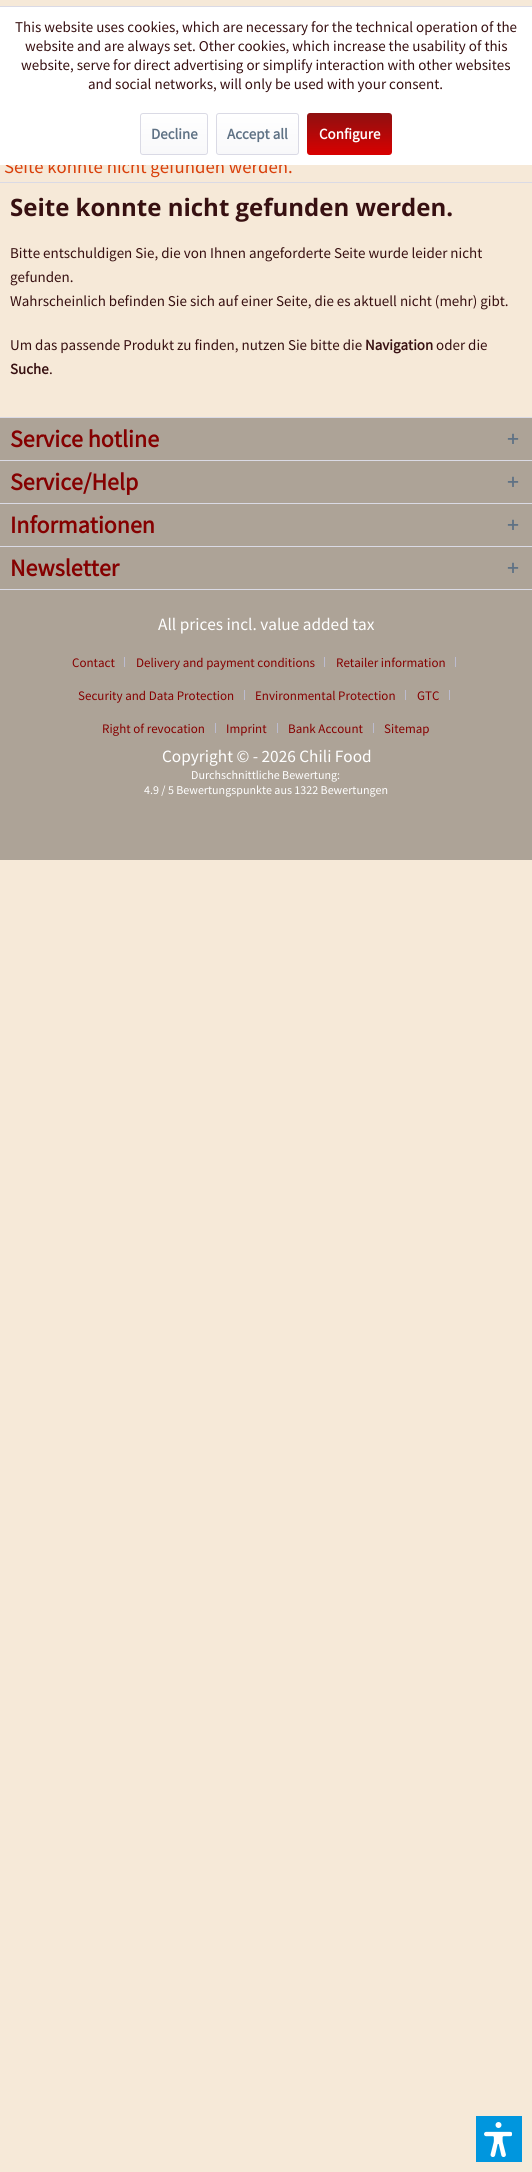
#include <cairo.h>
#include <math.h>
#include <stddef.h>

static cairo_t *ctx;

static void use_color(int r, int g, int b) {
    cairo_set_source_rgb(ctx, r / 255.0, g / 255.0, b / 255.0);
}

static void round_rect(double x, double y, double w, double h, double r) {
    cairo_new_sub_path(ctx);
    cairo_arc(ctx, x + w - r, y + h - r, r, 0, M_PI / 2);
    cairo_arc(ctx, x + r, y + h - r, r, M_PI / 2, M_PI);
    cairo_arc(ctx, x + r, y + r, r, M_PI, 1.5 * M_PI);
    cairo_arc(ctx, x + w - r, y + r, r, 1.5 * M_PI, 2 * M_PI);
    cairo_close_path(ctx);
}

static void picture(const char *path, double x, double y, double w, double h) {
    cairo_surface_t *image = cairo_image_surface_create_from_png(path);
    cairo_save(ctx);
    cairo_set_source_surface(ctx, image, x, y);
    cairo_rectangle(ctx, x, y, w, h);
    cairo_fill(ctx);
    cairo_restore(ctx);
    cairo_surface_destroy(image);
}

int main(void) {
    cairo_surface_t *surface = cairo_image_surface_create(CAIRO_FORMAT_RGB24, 532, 2172);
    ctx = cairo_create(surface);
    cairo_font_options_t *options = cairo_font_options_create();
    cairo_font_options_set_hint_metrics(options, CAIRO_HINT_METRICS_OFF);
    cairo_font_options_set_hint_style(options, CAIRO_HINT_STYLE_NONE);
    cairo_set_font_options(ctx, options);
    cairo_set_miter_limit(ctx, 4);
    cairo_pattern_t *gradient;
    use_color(246, 233, 216);
    cairo_paint(ctx);
    cairo_select_font_face(ctx, "Source Sans Pro", CAIRO_FONT_SLANT_NORMAL, CAIRO_FONT_WEIGHT_NORMAL);
    cairo_set_font_size(ctx, 18.75);
    use_color(217, 64, 11);
    cairo_move_to(ctx, 4, 173);
    cairo_show_text(ctx, "Seite konnte nicht gefunden werden.");
    use_color(255, 255, 255);
    cairo_rectangle(ctx, 0, 7, 532, 158);
    cairo_fill(ctx);
    use_color(218, 218, 229);
    cairo_rectangle(ctx, 0, 6, 532, 1);
    cairo_fill(ctx);
    cairo_set_font_size(ctx, 15);
    use_color(55, 16, 17);
    cairo_move_to(ctx, 15, 32);
    cairo_show_text(ctx, "This website uses cookies, which are necessary for the technical operation of the");
    cairo_move_to(ctx, 25, 51);
    cairo_show_text(ctx, "website and are always set. Other cookies, which increase the usability of this");
    cairo_move_to(ctx, 21, 70);
    cairo_show_text(ctx, "website, serve for direct advertising or simplify interaction with other websites");
    cairo_move_to(ctx, 88, 89);
    cairo_show_text(ctx, "and social networks, will only be used with your consent.");
    gradient = cairo_pattern_create_linear(174, 114, 174, 154);
    cairo_pattern_add_color_stop_rgba(gradient, 0, 1, 1, 1, 1);
    cairo_pattern_add_color_stop_rgba(gradient, 1, 0.973, 0.973, 0.98, 1);
    cairo_set_source(ctx, gradient);
    cairo_pattern_destroy(gradient);
    round_rect(141, 114, 66, 40, 2);
    cairo_fill(ctx);
    round_rect(140.5, 113.5, 67, 41, 2.5);
    use_color(218, 218, 229);
    cairo_set_line_width(ctx, 1);
    cairo_stroke(ctx);
    cairo_select_font_face(ctx, "Source Sans Pro", CAIRO_FONT_SLANT_NORMAL, CAIRO_FONT_WEIGHT_BOLD);
    use_color(95, 114, 133);
    cairo_move_to(ctx, 151, 139);
    cairo_show_text(ctx, "Decline");
    gradient = cairo_pattern_create_linear(258, 114, 258, 154);
    cairo_pattern_add_color_stop_rgba(gradient, 0, 1, 1, 1, 1);
    cairo_pattern_add_color_stop_rgba(gradient, 1, 0.973, 0.973, 0.98, 1);
    cairo_set_source(ctx, gradient);
    cairo_pattern_destroy(gradient);
    round_rect(217, 114, 81, 40, 2);
    cairo_fill(ctx);
    round_rect(216.5, 113.5, 82, 41, 2.5);
    use_color(218, 218, 229);
    cairo_stroke(ctx);
    use_color(95, 114, 133);
    cairo_move_to(ctx, 227, 139);
    cairo_show_text(ctx, "Accept all");
    gradient = cairo_pattern_create_linear(350, 71, 350, 155);
    cairo_pattern_add_color_stop_rgba(gradient, 0, 0.267, 0.122, 0.125, 1);
    cairo_pattern_add_color_stop_rgba(gradient, 1, 0.851, 0, 0, 1);
    cairo_set_source(ctx, gradient);
    cairo_pattern_destroy(gradient);
    round_rect(307, 113, 85, 42, 3);
    cairo_fill(ctx);
    use_color(255, 255, 255);
    cairo_move_to(ctx, 319, 139);
    cairo_show_text(ctx, "Configure");
    use_color(218, 218, 229);
    cairo_rectangle(ctx, 0, 182, 532, 1);
    cairo_fill(ctx);
    cairo_select_font_face(ctx, "Open Sans", CAIRO_FONT_SLANT_NORMAL, CAIRO_FONT_WEIGHT_BOLD);
    cairo_set_font_size(ctx, 24);
    use_color(55, 16, 17);
    cairo_move_to(ctx, 10, 216);
    cairo_show_text(ctx, "Seite konnte nicht gefunden werden.");
    cairo_select_font_face(ctx, "Source Sans Pro", CAIRO_FONT_SLANT_NORMAL, CAIRO_FONT_WEIGHT_NORMAL);
    cairo_set_font_size(ctx, 15);
    cairo_move_to(ctx, 10, 258);
    cairo_show_text(ctx, "Bitte entschuldigen Sie, die von Ihnen angeforderte Seite wurde leider nicht");
    cairo_move_to(ctx, 10, 282);
    cairo_show_text(ctx, "gefunden.");
    cairo_move_to(ctx, 10, 306);
    cairo_show_text(ctx, "Wahrscheinlich befinden Sie sich auf einer Seite, die es aktuell nicht (mehr) gibt.");
    cairo_move_to(ctx, 10, 350);
    cairo_show_text(ctx, "Um das passende Produkt zu finden, nutzen Sie bitte die");
    cairo_select_font_face(ctx, "Source Sans Pro", CAIRO_FONT_SLANT_NORMAL, CAIRO_FONT_WEIGHT_BOLD);
    cairo_move_to(ctx, 365, 350);
    cairo_show_text(ctx, "Navigation");
    cairo_select_font_face(ctx, "Source Sans Pro", CAIRO_FONT_SLANT_NORMAL, CAIRO_FONT_WEIGHT_NORMAL);
    cairo_move_to(ctx, 436, 350);
    cairo_show_text(ctx, "oder die");
    cairo_select_font_face(ctx, "Source Sans Pro", CAIRO_FONT_SLANT_NORMAL, CAIRO_FONT_WEIGHT_BOLD);
    cairo_move_to(ctx, 10, 374);
    cairo_show_text(ctx, "Suche");
    cairo_select_font_face(ctx, "Source Sans Pro", CAIRO_FONT_SLANT_NORMAL, CAIRO_FONT_WEIGHT_NORMAL);
    cairo_move_to(ctx, 49, 374);
    cairo_show_text(ctx, ".");
    use_color(173, 163, 151);
    cairo_rectangle(ctx, 0, 418, 532, 442);
    cairo_fill(ctx);
    use_color(218, 218, 229);
    cairo_rectangle(ctx, 0, 417, 532, 1);
    cairo_fill(ctx);
    cairo_select_font_face(ctx, "Source Sans Pro", CAIRO_FONT_SLANT_NORMAL, CAIRO_FONT_WEIGHT_BOLD);
    cairo_set_font_size(ctx, 24);
    use_color(133, 0, 0);
    cairo_move_to(ctx, 10, 447);
    cairo_show_text(ctx, "Service hotline");
    picture("img1.png", 507, 433, 12, 11);
    use_color(218, 218, 229);
    cairo_rectangle(ctx, 0, 460, 532, 1);
    cairo_fill(ctx);
    use_color(133, 0, 0);
    cairo_move_to(ctx, 10, 490);
    cairo_show_text(ctx, "Service/Help");
    picture("img1.png", 507, 476, 12, 11);
    use_color(218, 218, 229);
    cairo_rectangle(ctx, 0, 503, 532, 1);
    cairo_fill(ctx);
    use_color(133, 0, 0);
    cairo_move_to(ctx, 10, 533);
    cairo_show_text(ctx, "Informationen");
    picture("img1.png", 507, 519, 12, 11);
    use_color(218, 218, 229);
    cairo_rectangle(ctx, 0, 546, 532, 1);
    cairo_fill(ctx);
    cairo_rectangle(ctx, 0, 589, 532, 1);
    cairo_fill(ctx);
    use_color(133, 0, 0);
    cairo_move_to(ctx, 10, 576);
    cairo_show_text(ctx, "Newsletter");
    picture("img1.png", 507, 562, 12, 11);
    cairo_select_font_face(ctx, "Source Sans Pro", CAIRO_FONT_SLANT_NORMAL, CAIRO_FONT_WEIGHT_NORMAL);
    cairo_set_font_size(ctx, 17.25);
    use_color(255, 255, 255);
    cairo_move_to(ctx, 158, 630);
    cairo_show_text(ctx, "All prices incl. value added tax");
    cairo_set_font_size(ctx, 13);
    use_color(133, 0, 0);
    cairo_move_to(ctx, 72, 667);
    cairo_show_text(ctx, "Contact");
    use_color(188, 188, 208);
    cairo_rectangle(ctx, 124, 657, 1, 10);
    cairo_fill(ctx);
    use_color(133, 0, 0);
    cairo_move_to(ctx, 136, 667);
    cairo_show_text(ctx, "Delivery and payment conditions");
    use_color(188, 188, 208);
    cairo_rectangle(ctx, 324, 657, 1, 10);
    cairo_fill(ctx);
    use_color(133, 0, 0);
    cairo_move_to(ctx, 336, 667);
    cairo_show_text(ctx, "Retailer information");
    use_color(188, 188, 208);
    cairo_rectangle(ctx, 455, 657, 1, 10);
    cairo_fill(ctx);
    use_color(133, 0, 0);
    cairo_move_to(ctx, 78, 700);
    cairo_show_text(ctx, "Security and Data Protection");
    use_color(188, 188, 208);
    cairo_rectangle(ctx, 244, 690, 1, 10);
    cairo_fill(ctx);
    use_color(133, 0, 0);
    cairo_move_to(ctx, 255, 700);
    cairo_show_text(ctx, "Environmental Protection");
    use_color(188, 188, 208);
    cairo_rectangle(ctx, 405, 690, 1, 10);
    cairo_fill(ctx);
    use_color(133, 0, 0);
    cairo_move_to(ctx, 417, 700);
    cairo_show_text(ctx, "GTC");
    use_color(188, 188, 208);
    cairo_rectangle(ctx, 449, 690, 1, 10);
    cairo_fill(ctx);
    use_color(133, 0, 0);
    cairo_move_to(ctx, 102, 733);
    cairo_show_text(ctx, "Right of revocation");
    use_color(188, 188, 208);
    cairo_rectangle(ctx, 215, 723, 1, 10);
    cairo_fill(ctx);
    use_color(133, 0, 0);
    cairo_move_to(ctx, 226, 733);
    cairo_show_text(ctx, "Imprint");
    use_color(188, 188, 208);
    cairo_rectangle(ctx, 277, 723, 1, 10);
    cairo_fill(ctx);
    use_color(133, 0, 0);
    cairo_move_to(ctx, 288, 733);
    cairo_show_text(ctx, "Bank Account");
    use_color(188, 188, 208);
    cairo_rectangle(ctx, 373, 723, 1, 10);
    cairo_fill(ctx);
    use_color(133, 0, 0);
    cairo_move_to(ctx, 384, 733);
    cairo_show_text(ctx, "Sitemap");
    cairo_set_font_size(ctx, 17.25);
    use_color(255, 255, 255);
    cairo_move_to(ctx, 162, 762);
    cairo_show_text(ctx, "Copyright © - 2026 Chili Food");
    cairo_set_font_size(ctx, 12);
    cairo_move_to(ctx, 191, 779);
    cairo_show_text(ctx, "Durchschnittliche Bewertung:");
    cairo_move_to(ctx, 144, 794);
    cairo_show_text(ctx, "4.9 / 5 Bewertungspunkte aus 1322 Bewertungen");
    use_color(0, 150, 222);
    cairo_rectangle(ctx, 476, 2116, 46, 46);
    cairo_fill(ctx);
    picture("img2.png", 484, 2122, 28, 35);
    cairo_surface_write_to_png(surface, "result.png");
    cairo_font_options_destroy(options);
    cairo_destroy(ctx);
    cairo_surface_destroy(surface);
    return 0;
}
